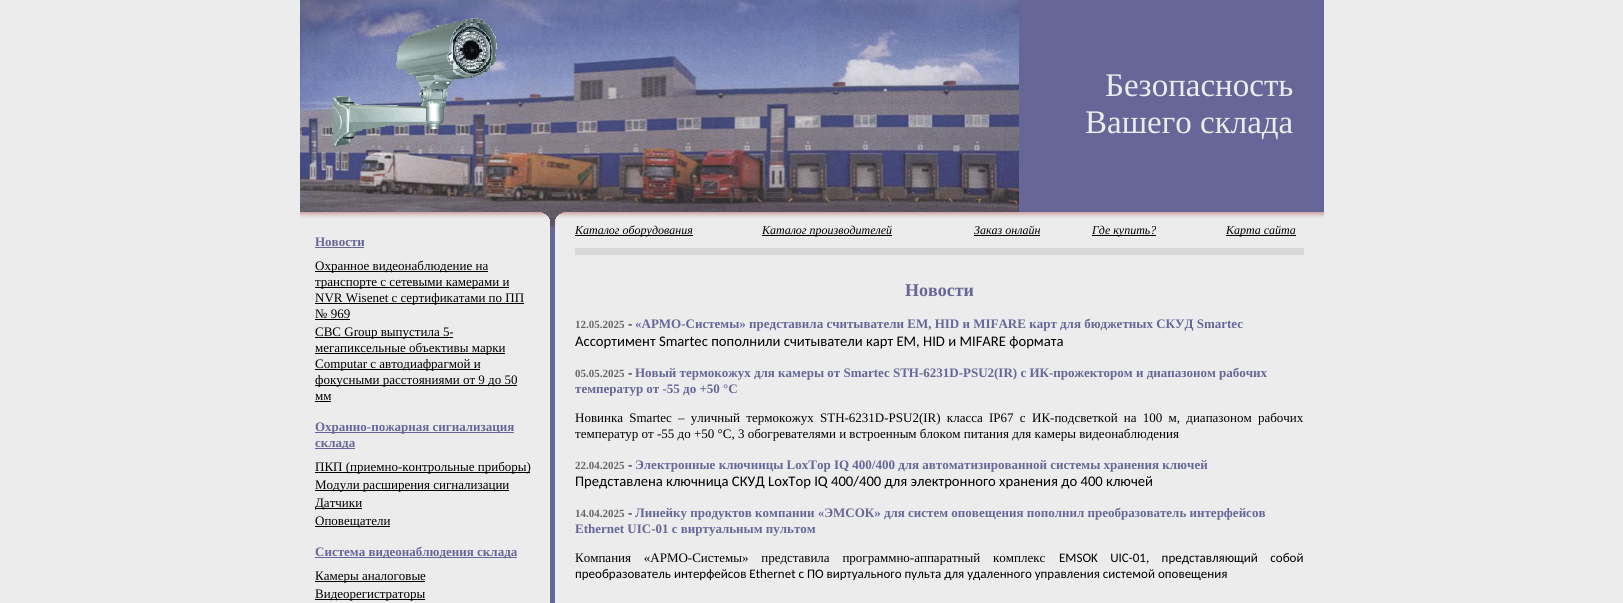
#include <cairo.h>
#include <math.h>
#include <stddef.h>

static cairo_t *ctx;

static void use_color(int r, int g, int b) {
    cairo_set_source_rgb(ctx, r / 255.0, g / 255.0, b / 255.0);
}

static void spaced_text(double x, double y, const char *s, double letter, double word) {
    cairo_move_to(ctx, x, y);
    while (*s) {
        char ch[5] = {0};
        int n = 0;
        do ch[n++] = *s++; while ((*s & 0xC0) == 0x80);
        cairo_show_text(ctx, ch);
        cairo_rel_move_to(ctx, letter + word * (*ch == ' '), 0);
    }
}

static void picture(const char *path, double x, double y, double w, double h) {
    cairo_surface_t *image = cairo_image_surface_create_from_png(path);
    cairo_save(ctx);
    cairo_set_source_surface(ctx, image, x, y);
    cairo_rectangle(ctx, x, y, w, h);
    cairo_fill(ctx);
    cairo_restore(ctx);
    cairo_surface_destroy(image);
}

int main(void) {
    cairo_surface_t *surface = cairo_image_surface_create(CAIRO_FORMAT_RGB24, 1623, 603);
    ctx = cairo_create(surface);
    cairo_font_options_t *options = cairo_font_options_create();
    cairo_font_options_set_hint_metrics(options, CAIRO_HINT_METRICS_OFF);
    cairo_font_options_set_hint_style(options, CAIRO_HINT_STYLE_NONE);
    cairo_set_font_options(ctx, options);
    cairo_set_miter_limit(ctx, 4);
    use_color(236, 236, 236);
    cairo_paint(ctx);
    use_color(102, 102, 153);
    cairo_rectangle(ctx, 550, 0, 774, 603);
    cairo_fill(ctx);
    picture("img1.png", 300, 0, 719, 226);
    picture("img2.png", 332, 18, 165, 130);
    cairo_select_font_face(ctx, "Liberation Serif", CAIRO_FONT_SLANT_NORMAL, CAIRO_FONT_WEIGHT_NORMAL);
    cairo_set_font_size(ctx, 33);
    use_color(236, 236, 236);
    cairo_move_to(ctx, 1105, 96);
    cairo_show_text(ctx, "Безопасность");
    cairo_move_to(ctx, 1085, 133);
    cairo_show_text(ctx, "Вашего склада");
    use_color(205, 167, 167);
    cairo_rectangle(ctx, 300, 212, 242, 1);
    cairo_fill(ctx);
    use_color(213, 184, 184);
    cairo_rectangle(ctx, 300, 213, 244, 1);
    cairo_fill(ctx);
    use_color(219, 199, 199);
    cairo_rectangle(ctx, 300, 214, 246, 1);
    cairo_fill(ctx);
    use_color(225, 211, 211);
    cairo_rectangle(ctx, 300, 215, 247, 1);
    cairo_fill(ctx);
    use_color(229, 221, 221);
    cairo_rectangle(ctx, 300, 216, 248, 1);
    cairo_fill(ctx);
    use_color(233, 229, 229);
    cairo_rectangle(ctx, 300, 217, 249, 1);
    cairo_fill(ctx);
    use_color(235, 234, 234);
    cairo_rectangle(ctx, 300, 218, 249, 1);
    cairo_fill(ctx);
    use_color(205, 167, 167);
    cairo_rectangle(ctx, 563, 212, 761, 1);
    cairo_fill(ctx);
    use_color(213, 184, 184);
    cairo_rectangle(ctx, 561, 213, 763, 1);
    cairo_fill(ctx);
    use_color(219, 199, 199);
    cairo_rectangle(ctx, 559, 214, 765, 1);
    cairo_fill(ctx);
    use_color(225, 211, 211);
    cairo_rectangle(ctx, 558, 215, 766, 1);
    cairo_fill(ctx);
    use_color(229, 221, 221);
    cairo_rectangle(ctx, 557, 216, 767, 1);
    cairo_fill(ctx);
    use_color(233, 229, 229);
    cairo_rectangle(ctx, 556, 217, 768, 1);
    cairo_fill(ctx);
    use_color(235, 234, 234);
    cairo_rectangle(ctx, 556, 218, 768, 1);
    cairo_fill(ctx);
    use_color(236, 236, 236);
    cairo_rectangle(ctx, 300, 219, 250, 7);
    cairo_fill(ctx);
    cairo_select_font_face(ctx, "Liberation Serif", CAIRO_FONT_SLANT_NORMAL, CAIRO_FONT_WEIGHT_BOLD);
    cairo_set_font_size(ctx, 13);
    use_color(102, 102, 153);
    cairo_move_to(ctx, 315, 246);
    cairo_show_text(ctx, "Новости");
    cairo_rectangle(ctx, 315, 247, 49, 1);
    cairo_fill(ctx);
    use_color(0, 0, 0);
    cairo_rectangle(ctx, 315, 271, 173, 1);
    cairo_fill(ctx);
    cairo_select_font_face(ctx, "Liberation Serif", CAIRO_FONT_SLANT_NORMAL, CAIRO_FONT_WEIGHT_NORMAL);
    cairo_move_to(ctx, 315, 270);
    cairo_show_text(ctx, "Охранное видеонаблюдение на");
    cairo_rectangle(ctx, 315, 287, 194, 1);
    cairo_fill(ctx);
    cairo_move_to(ctx, 315, 286);
    cairo_show_text(ctx, "транспорте с сетевыми камерами и");
    cairo_rectangle(ctx, 315, 303, 209, 1);
    cairo_fill(ctx);
    cairo_move_to(ctx, 315, 302);
    cairo_show_text(ctx, "NVR Wisenet с сертификатами по ПП");
    cairo_move_to(ctx, 315, 318);
    cairo_show_text(ctx, "№ 969");
    cairo_rectangle(ctx, 315, 319, 35, 1);
    cairo_fill(ctx);
    cairo_rectangle(ctx, 315, 337, 138, 1);
    cairo_fill(ctx);
    cairo_move_to(ctx, 315, 336);
    cairo_show_text(ctx, "CBC Group выпустила 5-");
    cairo_rectangle(ctx, 315, 353, 190, 1);
    cairo_fill(ctx);
    cairo_move_to(ctx, 315, 352);
    cairo_show_text(ctx, "мегапиксельные объективы марки");
    cairo_rectangle(ctx, 315, 369, 165, 1);
    cairo_fill(ctx);
    cairo_move_to(ctx, 315, 368);
    cairo_show_text(ctx, "Computar с автодиафрагмой и");
    cairo_rectangle(ctx, 315, 385, 202, 1);
    cairo_fill(ctx);
    cairo_move_to(ctx, 315, 384);
    cairo_show_text(ctx, "фокусными расстояниями от 9 до 50");
    cairo_move_to(ctx, 315, 400);
    cairo_show_text(ctx, "мм");
    cairo_rectangle(ctx, 315, 401, 16, 1);
    cairo_fill(ctx);
    use_color(102, 102, 153);
    cairo_rectangle(ctx, 315, 432, 199, 1);
    cairo_fill(ctx);
    cairo_select_font_face(ctx, "Liberation Serif", CAIRO_FONT_SLANT_NORMAL, CAIRO_FONT_WEIGHT_BOLD);
    cairo_move_to(ctx, 315, 431);
    cairo_show_text(ctx, "Охранно-пожарная сигнализация");
    cairo_rectangle(ctx, 315, 448, 40, 1);
    cairo_fill(ctx);
    cairo_move_to(ctx, 315, 447);
    cairo_show_text(ctx, "склада");
    use_color(0, 0, 0);
    cairo_rectangle(ctx, 315, 472, 215, 1);
    cairo_fill(ctx);
    cairo_select_font_face(ctx, "Liberation Serif", CAIRO_FONT_SLANT_NORMAL, CAIRO_FONT_WEIGHT_NORMAL);
    cairo_move_to(ctx, 315, 471);
    cairo_show_text(ctx, "ПКП (приемно-контрольные приборы)");
    cairo_rectangle(ctx, 315, 490, 194, 1);
    cairo_fill(ctx);
    cairo_move_to(ctx, 315, 489);
    cairo_show_text(ctx, "Модули расширения сигнализации");
    cairo_rectangle(ctx, 315, 508, 47, 1);
    cairo_fill(ctx);
    cairo_move_to(ctx, 315, 507);
    cairo_show_text(ctx, "Датчики");
    cairo_rectangle(ctx, 315, 526, 75, 1);
    cairo_fill(ctx);
    cairo_move_to(ctx, 315, 525);
    cairo_show_text(ctx, "Оповещатели");
    use_color(102, 102, 153);
    cairo_rectangle(ctx, 315, 557, 202, 1);
    cairo_fill(ctx);
    cairo_select_font_face(ctx, "Liberation Serif", CAIRO_FONT_SLANT_NORMAL, CAIRO_FONT_WEIGHT_BOLD);
    cairo_move_to(ctx, 315, 556);
    cairo_show_text(ctx, "Система видеонаблюдения склада");
    use_color(0, 0, 0);
    cairo_rectangle(ctx, 315, 581, 110, 1);
    cairo_fill(ctx);
    cairo_select_font_face(ctx, "Liberation Serif", CAIRO_FONT_SLANT_NORMAL, CAIRO_FONT_WEIGHT_NORMAL);
    cairo_move_to(ctx, 315, 580);
    cairo_show_text(ctx, "Камеры аналоговые");
    cairo_rectangle(ctx, 315, 599, 110, 1);
    cairo_fill(ctx);
    cairo_move_to(ctx, 315, 598);
    cairo_show_text(ctx, "Видеорегистраторы");
    use_color(236, 236, 236);
    cairo_rectangle(ctx, 555, 219, 769, 384);
    cairo_fill(ctx);
    use_color(0, 0, 0);
    cairo_rectangle(ctx, 575, 235, 118, 1);
    cairo_fill(ctx);
    cairo_select_font_face(ctx, "Liberation Serif", CAIRO_FONT_SLANT_ITALIC, CAIRO_FONT_WEIGHT_NORMAL);
    cairo_set_font_size(ctx, 12);
    cairo_move_to(ctx, 575, 234);
    cairo_show_text(ctx, "Каталог оборудования");
    cairo_rectangle(ctx, 762, 235, 130, 1);
    cairo_fill(ctx);
    cairo_move_to(ctx, 762, 234);
    cairo_show_text(ctx, "Каталог производителей");
    cairo_move_to(ctx, 974, 234);
    cairo_show_text(ctx, "Заказ онлайн");
    cairo_rectangle(ctx, 974, 235, 66, 1);
    cairo_fill(ctx);
    cairo_rectangle(ctx, 1092, 235, 64, 1);
    cairo_fill(ctx);
    cairo_move_to(ctx, 1092, 234);
    cairo_show_text(ctx, "Где купить?");
    cairo_rectangle(ctx, 1226, 235, 70, 1);
    cairo_fill(ctx);
    cairo_move_to(ctx, 1226, 234);
    cairo_show_text(ctx, "Карта сайта");
    use_color(216, 216, 216);
    cairo_rectangle(ctx, 575, 248, 729, 7);
    cairo_fill(ctx);
    cairo_select_font_face(ctx, "Liberation Serif", CAIRO_FONT_SLANT_NORMAL, CAIRO_FONT_WEIGHT_BOLD);
    cairo_set_font_size(ctx, 18);
    use_color(102, 102, 153);
    cairo_move_to(ctx, 905, 296);
    cairo_show_text(ctx, "Новости");
    cairo_set_font_size(ctx, 11);
    use_color(102, 102, 102);
    cairo_move_to(ctx, 575, 328);
    cairo_show_text(ctx, "12.05.2025");
    cairo_select_font_face(ctx, "Liberation Serif", CAIRO_FONT_SLANT_NORMAL, CAIRO_FONT_WEIGHT_NORMAL);
    cairo_set_font_size(ctx, 13);
    use_color(0, 0, 0);
    cairo_move_to(ctx, 628, 328);
    cairo_show_text(ctx, "-");
    cairo_select_font_face(ctx, "Liberation Serif", CAIRO_FONT_SLANT_NORMAL, CAIRO_FONT_WEIGHT_BOLD);
    use_color(102, 102, 153);
    cairo_move_to(ctx, 635, 328);
    cairo_show_text(ctx, "«АРМО-Системы» представила считыватели EM, HID и MIFARE карт для бюджетных СКУД Smartec");
    cairo_select_font_face(ctx, "Carlito", CAIRO_FONT_SLANT_NORMAL, CAIRO_FONT_WEIGHT_NORMAL);
    cairo_set_font_size(ctx, 14.65);
    use_color(0, 0, 0);
    cairo_move_to(ctx, 575, 346);
    cairo_show_text(ctx, "Ассортимент Smartec пополнили считыватели карт EM, HID и MIFARE формата");
    cairo_select_font_face(ctx, "Liberation Serif", CAIRO_FONT_SLANT_NORMAL, CAIRO_FONT_WEIGHT_BOLD);
    cairo_set_font_size(ctx, 11);
    use_color(102, 102, 102);
    cairo_move_to(ctx, 575, 377);
    cairo_show_text(ctx, "05.05.2025");
    cairo_select_font_face(ctx, "Liberation Serif", CAIRO_FONT_SLANT_NORMAL, CAIRO_FONT_WEIGHT_NORMAL);
    cairo_set_font_size(ctx, 13);
    use_color(0, 0, 0);
    cairo_move_to(ctx, 628, 377);
    cairo_show_text(ctx, "-");
    cairo_select_font_face(ctx, "Liberation Serif", CAIRO_FONT_SLANT_NORMAL, CAIRO_FONT_WEIGHT_BOLD);
    use_color(102, 102, 153);
    cairo_move_to(ctx, 635, 377);
    cairo_show_text(ctx, "Новый термокожух для камеры от Smartec STH-6231D-PSU2(IR) с ИК-прожектором и диапазоном рабочих");
    cairo_move_to(ctx, 575, 393);
    cairo_show_text(ctx, "температур от -55 до +50 °С");
    cairo_select_font_face(ctx, "Liberation Serif", CAIRO_FONT_SLANT_NORMAL, CAIRO_FONT_WEIGHT_NORMAL);
    use_color(0, 0, 0);
    spaced_text(575, 422, "Новинка Smartec – уличный термокожух STH-6231D-PSU2(IR) класса IP67 с", 0, 3);
    spaced_text(1032, 422, "ИК-подсветкой на 100 м, диапазоном рабочих", 0, 3);
    cairo_move_to(ctx, 575, 438);
    cairo_show_text(ctx, "температур от -55 до +50 °С, 3 обогревателями и встроенным блоком питания для камеры видеонаблюдения");
    cairo_select_font_face(ctx, "Liberation Serif", CAIRO_FONT_SLANT_NORMAL, CAIRO_FONT_WEIGHT_BOLD);
    cairo_set_font_size(ctx, 11);
    use_color(102, 102, 102);
    cairo_move_to(ctx, 575, 469);
    cairo_show_text(ctx, "22.04.2025");
    cairo_select_font_face(ctx, "Liberation Serif", CAIRO_FONT_SLANT_NORMAL, CAIRO_FONT_WEIGHT_NORMAL);
    cairo_set_font_size(ctx, 13);
    use_color(0, 0, 0);
    cairo_move_to(ctx, 628, 469);
    cairo_show_text(ctx, "-");
    cairo_select_font_face(ctx, "Liberation Serif", CAIRO_FONT_SLANT_NORMAL, CAIRO_FONT_WEIGHT_BOLD);
    use_color(102, 102, 153);
    cairo_move_to(ctx, 635, 469);
    cairo_show_text(ctx, "Электронные ключницы LoxTop IQ 400/400 для автоматизированной системы хранения ключей");
    cairo_select_font_face(ctx, "Carlito", CAIRO_FONT_SLANT_NORMAL, CAIRO_FONT_WEIGHT_NORMAL);
    cairo_set_font_size(ctx, 14.65);
    use_color(0, 0, 0);
    cairo_move_to(ctx, 575, 486);
    cairo_show_text(ctx, "Представлена ключница СКУД LoxTop IQ 400/400 для электронного хранения до 400 ключей");
    cairo_select_font_face(ctx, "Liberation Serif", CAIRO_FONT_SLANT_NORMAL, CAIRO_FONT_WEIGHT_BOLD);
    cairo_set_font_size(ctx, 11);
    use_color(102, 102, 102);
    cairo_move_to(ctx, 575, 517);
    cairo_show_text(ctx, "14.04.2025");
    cairo_select_font_face(ctx, "Liberation Serif", CAIRO_FONT_SLANT_NORMAL, CAIRO_FONT_WEIGHT_NORMAL);
    cairo_set_font_size(ctx, 13);
    use_color(0, 0, 0);
    cairo_move_to(ctx, 628, 517);
    cairo_show_text(ctx, "-");
    cairo_select_font_face(ctx, "Liberation Serif", CAIRO_FONT_SLANT_NORMAL, CAIRO_FONT_WEIGHT_BOLD);
    use_color(102, 102, 153);
    cairo_move_to(ctx, 635, 517);
    cairo_show_text(ctx, "Линейку продуктов компании «ЭМСОК» для систем оповещения пополнил преобразователь интерфейсов");
    cairo_move_to(ctx, 575, 533);
    cairo_show_text(ctx, "Ethernet UIC-01 с виртуальным пультом");
    cairo_select_font_face(ctx, "Liberation Serif", CAIRO_FONT_SLANT_NORMAL, CAIRO_FONT_WEIGHT_NORMAL);
    use_color(0, 0, 0);
    spaced_text(575, 562, "Компания «АРМО-Системы» представила программно-аппаратный комплекс", 0, 9.5);
    cairo_select_font_face(ctx, "Carlito", CAIRO_FONT_SLANT_NORMAL, CAIRO_FONT_WEIGHT_NORMAL);
    spaced_text(1059, 562, "EMSOK UIC-01, представляющий собой", 0, 9.5);
    cairo_move_to(ctx, 575, 578);
    cairo_show_text(ctx, "преобразователь интерфейсов Ethernet с ПО виртуального пульта для удаленного управления системой оповещения");
    cairo_surface_write_to_png(surface, "result.png");
    cairo_font_options_destroy(options);
    cairo_destroy(ctx);
    cairo_surface_destroy(surface);
    return 0;
}
